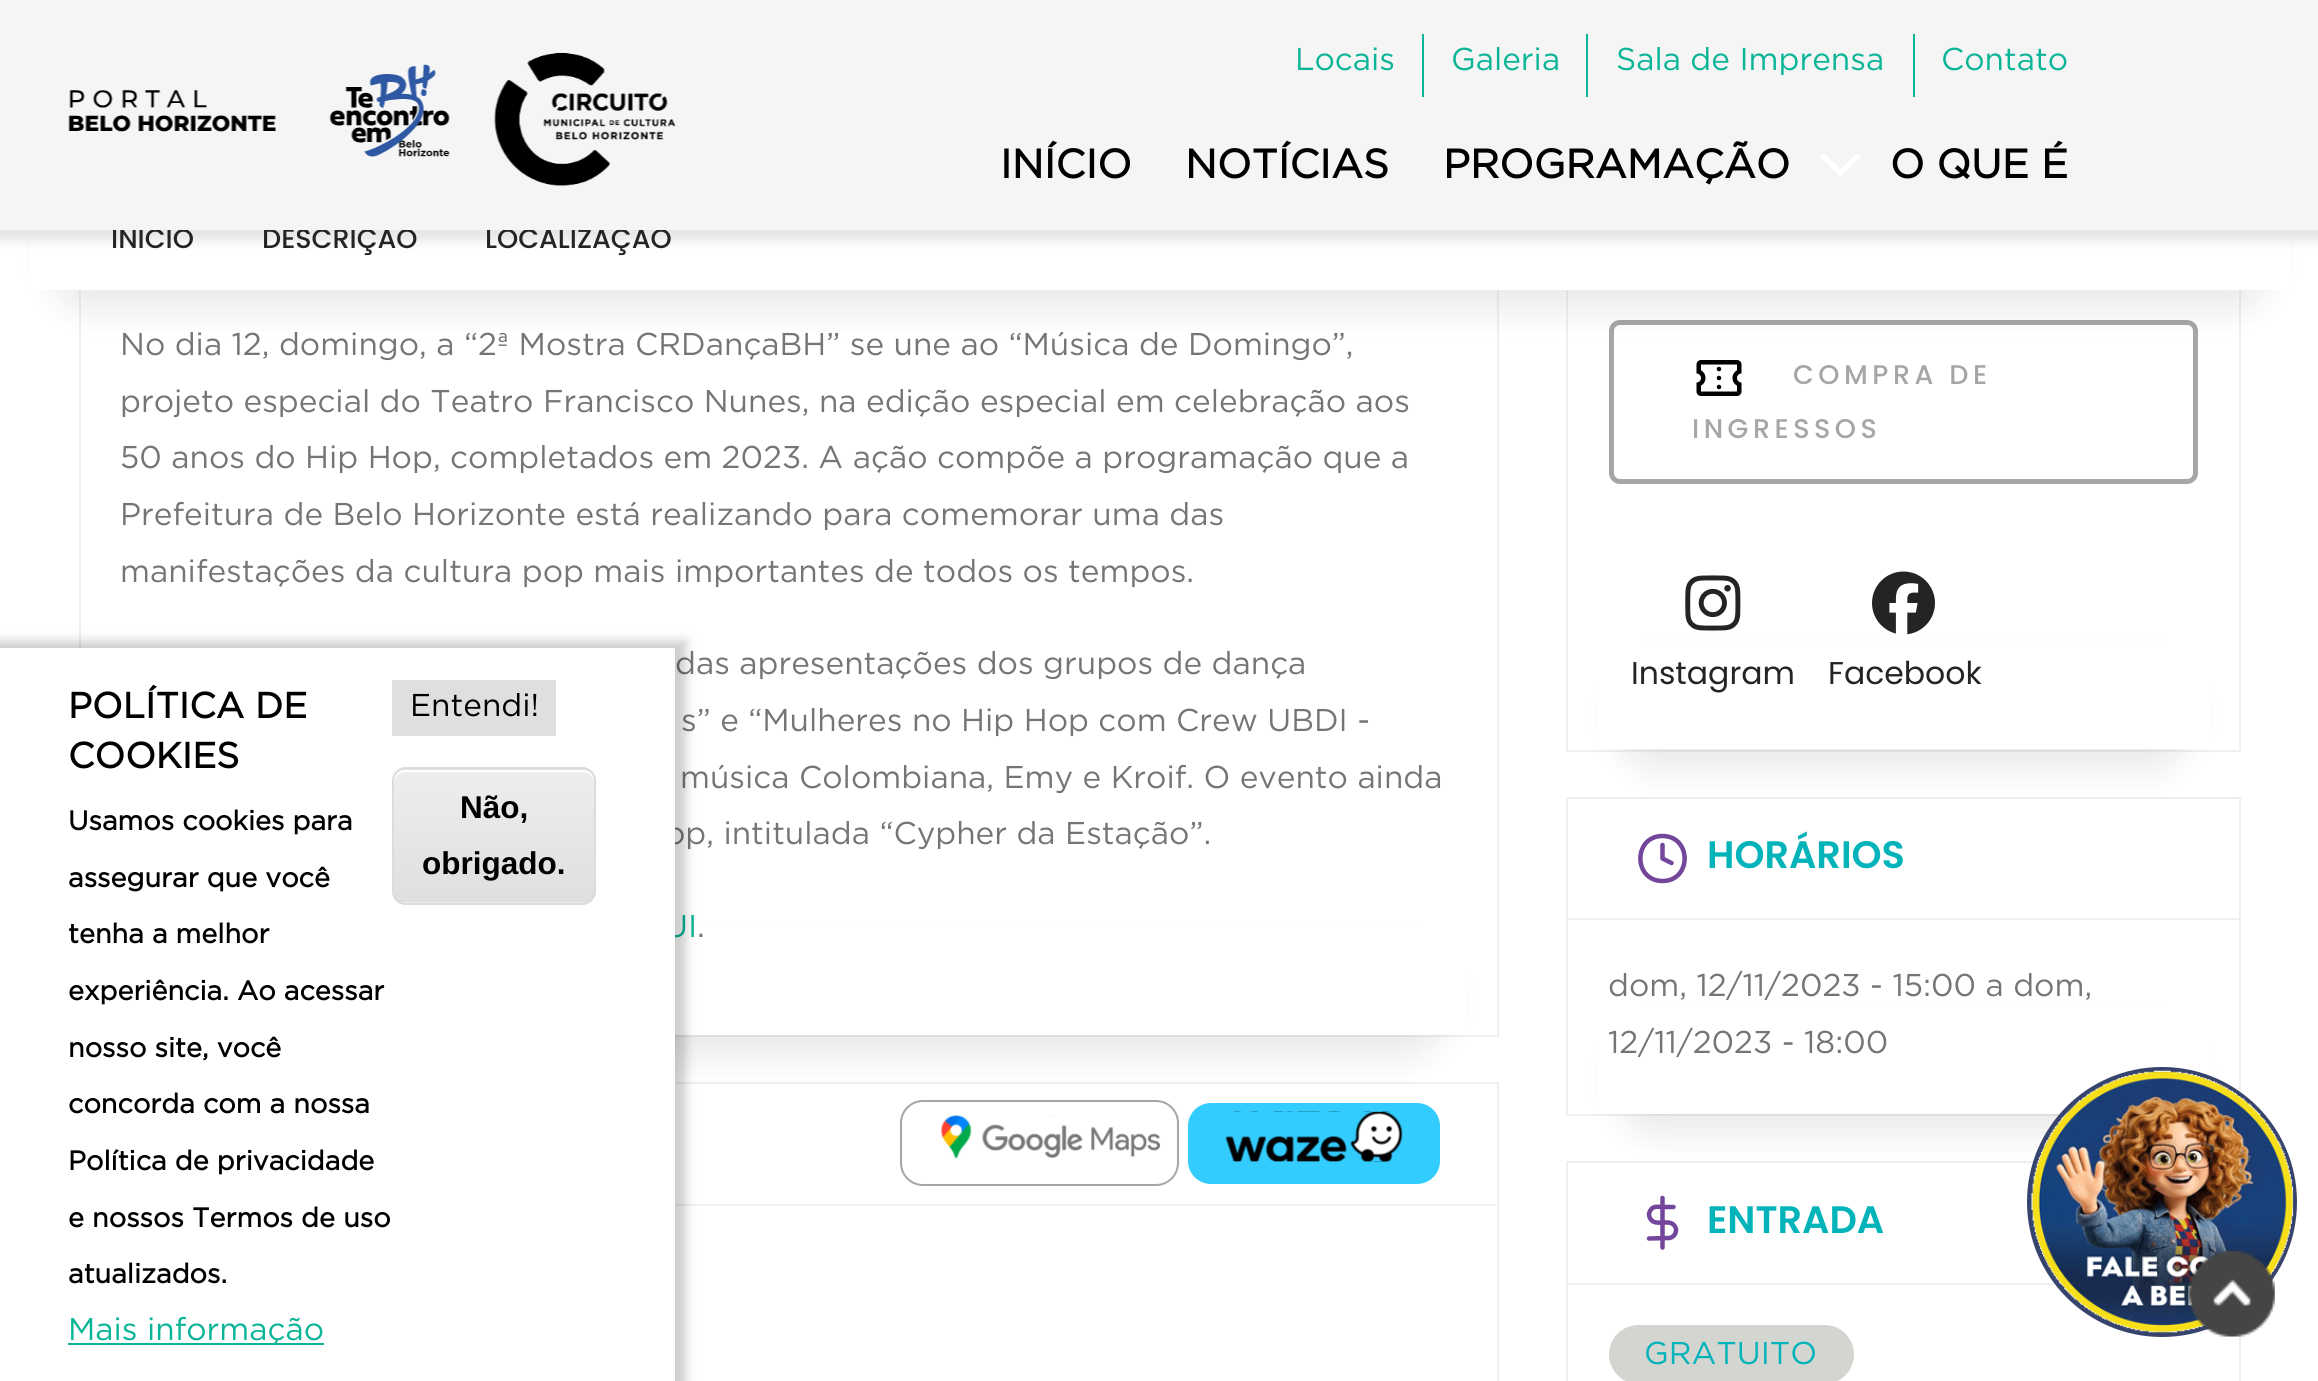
#include <cairo.h>
#include <math.h>
#include <stddef.h>

static cairo_t *ctx;

static void use_color(int r, int g, int b) {
    cairo_set_source_rgb(ctx, r / 255.0, g / 255.0, b / 255.0);
}

static void spaced_text(double x, double y, const char *s, double letter, double word) {
    cairo_move_to(ctx, x, y);
    while (*s) {
        char ch[5] = {0};
        int n = 0;
        do ch[n++] = *s++; while ((*s & 0xC0) == 0x80);
        cairo_show_text(ctx, ch);
        cairo_rel_move_to(ctx, letter + word * (*ch == ' '), 0);
    }
}

static void round_rect(double x, double y, double w, double h, double r) {
    cairo_new_sub_path(ctx);
    cairo_arc(ctx, x + w - r, y + h - r, r, 0, M_PI / 2);
    cairo_arc(ctx, x + r, y + h - r, r, M_PI / 2, M_PI);
    cairo_arc(ctx, x + r, y + r, r, M_PI, 1.5 * M_PI);
    cairo_arc(ctx, x + w - r, y + r, r, 1.5 * M_PI, 2 * M_PI);
    cairo_close_path(ctx);
}

static void shadow(double x, double y, double w, double h, double r, double blur, double alpha) {
    cairo_push_group_with_content(ctx, CAIRO_CONTENT_ALPHA);
    cairo_set_operator(ctx, CAIRO_OPERATOR_SOURCE);
    for (int i = 15; i >= -15 && fmin(w, h) + blur * i / 3 > 0; i -= 2) {
        double e = blur * i / 6;
        cairo_set_source_rgba(ctx, 0, 0, 0, alpha * erfc((i - 1) / 8.5) / 2);
        round_rect(x - e, y - e, w + 2 * e, h + 2 * e, fmax(0, fmin(r + e + blur * .6, fmin(w, h) / 2 + e)));
        cairo_fill(ctx);
    }
    cairo_pattern_t *soft = cairo_pop_group(ctx);
    cairo_mask(ctx, soft);
    cairo_pattern_destroy(soft);
}

static void picture(const char *path, double x, double y, double w, double h) {
    cairo_surface_t *image = cairo_image_surface_create_from_png(path);
    cairo_save(ctx);
    cairo_set_source_surface(ctx, image, x, y);
    cairo_rectangle(ctx, x, y, w, h);
    cairo_fill(ctx);
    cairo_restore(ctx);
    cairo_surface_destroy(image);
}

int main(void) {
    cairo_surface_t *surface = cairo_image_surface_create(CAIRO_FORMAT_RGB24, 2318, 1381);
    ctx = cairo_create(surface);
    cairo_font_options_t *options = cairo_font_options_create();
    cairo_font_options_set_hint_metrics(options, CAIRO_HINT_METRICS_OFF);
    cairo_font_options_set_hint_style(options, CAIRO_HINT_STYLE_NONE);
    cairo_set_font_options(ctx, options);
    cairo_set_miter_limit(ctx, 4);
    cairo_pattern_t *gradient;
    use_color(255, 255, 255);
    cairo_paint(ctx);
    cairo_rectangle(ctx, 80, 156, 1418, 880);
    use_color(240, 240, 240);
    cairo_stroke(ctx);
    cairo_rectangle(ctx, 1567, 156, 673, 595);
    cairo_stroke(ctx);
    round_rect(1611.5, 322.5, 584, 159, 8.5);
    use_color(166, 166, 166);
    cairo_set_line_width(ctx, 5);
    cairo_stroke(ctx);
    picture("img6.png", 1696, 360, 46, 36);
    use_color(0, 0, 0);
    shadow(45, 200, 2230, 113, 56.5, 16, 0.08);
    use_color(255, 255, 255);
    cairo_rectangle(ctx, 29, 230, 2262, 60);
    cairo_fill(ctx);
    use_color(0, 0, 0);
    shadow(-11, -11, 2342, 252, 0, 5.5, 0.1);
    cairo_select_font_face(ctx, "Poppins Medium", CAIRO_FONT_SLANT_NORMAL, CAIRO_FONT_WEIGHT_NORMAL);
    cairo_set_font_size(ctx, 27);
    use_color(36, 36, 36);
    cairo_move_to(ctx, 111, 248);
    cairo_show_text(ctx, "INÍCIO");
    cairo_move_to(ctx, 262, 248);
    cairo_show_text(ctx, "DESCRIÇÃO");
    cairo_move_to(ctx, 485, 248);
    cairo_show_text(ctx, "LOCALIZAÇÃO");
    use_color(245, 245, 245);
    cairo_rectangle(ctx, 0, 0, 2318, 230);
    cairo_fill(ctx);
    picture("img1.png", 68, 64, 382, 93);
    picture("img2.png", 494, 52, 182, 134);
    cairo_select_font_face(ctx, "Gotham", CAIRO_FONT_SLANT_NORMAL, CAIRO_FONT_WEIGHT_NORMAL);
    cairo_set_font_size(ctx, 31.5);
    use_color(10, 180, 150);
    cairo_move_to(ctx, 1295, 70);
    cairo_show_text(ctx, "Locais");
    cairo_rectangle(ctx, 1422, 34, 2, 63);
    cairo_fill(ctx);
    cairo_move_to(ctx, 1451, 70);
    cairo_show_text(ctx, "Galeria");
    cairo_rectangle(ctx, 1586, 34, 2, 63);
    cairo_fill(ctx);
    cairo_move_to(ctx, 1616, 70);
    cairo_show_text(ctx, "Sala de Imprensa");
    cairo_rectangle(ctx, 1913, 34, 2, 63);
    cairo_fill(ctx);
    cairo_move_to(ctx, 1941, 70);
    cairo_show_text(ctx, "Contato");
    cairo_select_font_face(ctx, "Gotham", CAIRO_FONT_SLANT_NORMAL, CAIRO_FONT_WEIGHT_BOLD);
    cairo_set_font_size(ctx, 40.5);
    use_color(0, 0, 0);
    cairo_move_to(ctx, 1000, 178);
    cairo_show_text(ctx, "INÍCIO");
    cairo_move_to(ctx, 1185, 178);
    cairo_show_text(ctx, "NOTÍCIAS");
    cairo_move_to(ctx, 1443, 178);
    cairo_show_text(ctx, "PROGRAMAÇÃO");
    picture("img3.png", 1821, 154, 39, 22);
    cairo_move_to(ctx, 1890, 178);
    cairo_show_text(ctx, "O QUE É");
    use_color(0, 0, 0);
    shadow(126, 945, 1325, 113, 56.5, 16, 0.08);
    use_color(255, 255, 255);
    cairo_rectangle(ctx, 110, 927, 1357, 108);
    cairo_fill(ctx);
    cairo_select_font_face(ctx, "Gotham", CAIRO_FONT_SLANT_NORMAL, CAIRO_FONT_WEIGHT_NORMAL);
    cairo_set_font_size(ctx, 31.5);
    use_color(117, 117, 117);
    cairo_move_to(ctx, 120, 355);
    cairo_show_text(ctx, "No dia 12, domingo, a “2ª Mostra CRDançaBH” se une ao “Música de Domingo”,");
    cairo_move_to(ctx, 120, 412);
    cairo_show_text(ctx, "projeto especial do Teatro Francisco Nunes, na edição especial em celebração aos");
    cairo_move_to(ctx, 120, 468);
    cairo_show_text(ctx, "50 anos do Hip Hop, completados em 2023. A ação compõe a programação que a");
    cairo_move_to(ctx, 120, 525);
    cairo_show_text(ctx, "Prefeitura de Belo Horizonte está realizando para comemorar uma das");
    cairo_move_to(ctx, 120, 582);
    cairo_show_text(ctx, "manifestações da cultura pop mais importantes de todos os tempos.");
    cairo_move_to(ctx, 675, 674);
    cairo_show_text(ctx, "das apresentações dos grupos de dança");
    cairo_move_to(ctx, 681, 731);
    cairo_show_text(ctx, "s” e “Mulheres no Hip Hop com Crew UBDI -");
    cairo_move_to(ctx, 680, 788);
    cairo_show_text(ctx, "música Colombiana, Emy e Kroif. O evento ainda");
    cairo_move_to(ctx, 665, 844);
    cairo_show_text(ctx, "op, intitulada “Cypher da Estação”.");
    use_color(10, 180, 150);
    cairo_move_to(ctx, 664, 937);
    cairo_show_text(ctx, "UI");
    use_color(117, 117, 117);
    cairo_move_to(ctx, 697, 937);
    cairo_show_text(ctx, ".");
    cairo_rectangle(ctx, 80, 1083, 1418, 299);
    use_color(239, 239, 239);
    cairo_set_line_width(ctx, 2);
    cairo_stroke(ctx);
    use_color(240, 240, 240);
    cairo_rectangle(ctx, 675, 1204, 821, 2);
    cairo_fill(ctx);
    round_rect(901, 1101, 277, 84, 22);
    use_color(166, 166, 166);
    cairo_stroke(ctx);
    use_color(51, 204, 255);
    round_rect(1188, 1103, 252, 81, 23);
    cairo_fill(ctx);
    picture("img4.png", 941, 1115, 220, 44);
    picture("img5.png", 1225, 1111, 178, 51);
    use_color(0, 0, 0);
    shadow(1613, 659, 581, 113, 56.5, 16, 0.08);
    use_color(255, 255, 255);
    cairo_rectangle(ctx, 1597, 641, 613, 108);
    cairo_fill(ctx);
    cairo_select_font_face(ctx, "Poppins Medium", CAIRO_FONT_SLANT_NORMAL, CAIRO_FONT_WEIGHT_NORMAL);
    cairo_set_font_size(ctx, 27);
    use_color(166, 166, 166);
    spaced_text(1793, 384, "COMPRA DE", 4.5, 0);
    spaced_text(1692, 438, "INGRESSOS", 4.5, 0);
    picture("img7.png", 1685, 575, 56, 56);
    cairo_select_font_face(ctx, "Poppins", CAIRO_FONT_SLANT_NORMAL, CAIRO_FONT_WEIGHT_NORMAL);
    cairo_set_font_size(ctx, 31.5);
    use_color(36, 36, 36);
    cairo_move_to(ctx, 1631, 684);
    cairo_show_text(ctx, "Instagram");
    picture("img8.png", 1872, 571, 63, 64);
    cairo_move_to(ctx, 1828, 684);
    cairo_show_text(ctx, "Facebook");
    cairo_rectangle(ctx, 1567, 798, 673, 317);
    use_color(239, 239, 239);
    cairo_stroke(ctx);
    use_color(240, 240, 240);
    cairo_rectangle(ctx, 1568, 918, 671, 2);
    cairo_fill(ctx);
    cairo_new_path(ctx);
    cairo_move_to(ctx, 1662.5, 881);
    cairo_curve_to(ctx, 1692, 881, 1692, 836, 1662.5, 836);
    cairo_curve_to(ctx, 1633, 836, 1633, 881, 1662.5, 881);
    cairo_close_path(ctx);
    cairo_move_to(ctx, 1662.5, 845);
    cairo_line_to(ctx, 1662.5, 858.5);
    cairo_line_to(ctx, 1671.5, 863);
    use_color(115, 70, 155);
    cairo_set_line_width(ctx, 4.5);
    cairo_set_line_cap(ctx, CAIRO_LINE_CAP_ROUND);
    cairo_set_line_join(ctx, CAIRO_LINE_JOIN_ROUND);
    cairo_stroke(ctx);
    cairo_select_font_face(ctx, "Poppins SemiBold", CAIRO_FONT_SLANT_NORMAL, CAIRO_FONT_WEIGHT_NORMAL);
    cairo_set_font_size(ctx, 38.25);
    use_color(3, 179, 186);
    cairo_move_to(ctx, 1707, 868);
    cairo_show_text(ctx, "HORÁRIOS");
    use_color(0, 0, 0);
    shadow(1613, 1024, 581, 112, 56, 16, 0.08);
    use_color(255, 255, 255);
    cairo_rectangle(ctx, 1597, 1006, 613, 108);
    cairo_fill(ctx);
    cairo_select_font_face(ctx, "Gotham", CAIRO_FONT_SLANT_NORMAL, CAIRO_FONT_WEIGHT_NORMAL);
    cairo_set_font_size(ctx, 31.5);
    use_color(117, 117, 117);
    cairo_move_to(ctx, 1608, 996);
    cairo_show_text(ctx, "dom, 12/11/2023 - 15:00 a dom,");
    cairo_move_to(ctx, 1608, 1053);
    cairo_show_text(ctx, "12/11/2023 - 18:00");
    cairo_rectangle(ctx, 1567, 1162, 673, 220);
    use_color(239, 239, 239);
    cairo_set_line_width(ctx, 2);
    cairo_set_line_cap(ctx, CAIRO_LINE_CAP_BUTT);
    cairo_set_line_join(ctx, CAIRO_LINE_JOIN_MITER);
    cairo_stroke(ctx);
    use_color(240, 240, 240);
    cairo_rectangle(ctx, 1568, 1283, 488, 2);
    cairo_fill(ctx);
    cairo_new_path(ctx);
    cairo_move_to(ctx, 1662.5, 1198);
    cairo_line_to(ctx, 1662.5, 1247.5);
    cairo_move_to(ctx, 1673.5, 1207);
    cairo_line_to(ctx, 1662.5, 1207);
    cairo_curve_to(ctx, 1659, 1207, 1655.5, 1206, 1652.5, 1208);
    cairo_curve_to(ctx, 1650.5, 1209.5, 1649.5, 1211.5, 1649, 1214);
    cairo_curve_to(ctx, 1649, 1215.5, 1649.5, 1217.5, 1650.5, 1219);
    cairo_curve_to(ctx, 1656, 1227.5, 1671, 1217, 1675.5, 1227.5);
    cairo_curve_to(ctx, 1676.5, 1229.5, 1676, 1232, 1675, 1234);
    cairo_curve_to(ctx, 1674, 1236, 1672, 1237.5, 1669.5, 1238);
    cairo_line_to(ctx, 1649, 1238.5);
    use_color(115, 70, 155);
    cairo_set_line_width(ctx, 4.5);
    cairo_set_line_cap(ctx, CAIRO_LINE_CAP_ROUND);
    cairo_set_line_join(ctx, CAIRO_LINE_JOIN_ROUND);
    cairo_stroke(ctx);
    cairo_select_font_face(ctx, "Poppins SemiBold", CAIRO_FONT_SLANT_NORMAL, CAIRO_FONT_WEIGHT_NORMAL);
    cairo_set_font_size(ctx, 38.25);
    use_color(3, 179, 186);
    cairo_move_to(ctx, 1707, 1233);
    cairo_show_text(ctx, "ENTRADA");
    use_color(211, 213, 209);
    round_rect(1609, 1325, 245, 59, 29.5);
    cairo_fill(ctx);
    cairo_select_font_face(ctx, "Gotham", CAIRO_FONT_SLANT_NORMAL, CAIRO_FONT_WEIGHT_NORMAL);
    cairo_set_font_size(ctx, 31.5);
    use_color(3, 179, 186);
    cairo_move_to(ctx, 1644, 1364);
    cairo_show_text(ctx, "GRATUITO");
    use_color(0, 0, 0);
    shadow(-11, 641, 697, 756, 0, 5.5, 0.2);
    use_color(255, 255, 255);
    cairo_rectangle(ctx, 0, 648, 675, 733);
    cairo_fill(ctx);
    cairo_select_font_face(ctx, "Gotham", CAIRO_FONT_SLANT_NORMAL, CAIRO_FONT_WEIGHT_BOLD);
    cairo_set_font_size(ctx, 36);
    use_color(0, 0, 0);
    cairo_move_to(ctx, 68, 718);
    cairo_show_text(ctx, "POLÍTICA DE");
    cairo_move_to(ctx, 68, 768);
    cairo_show_text(ctx, "COOKIES");
    cairo_set_font_size(ctx, 27);
    cairo_move_to(ctx, 68, 830);
    cairo_show_text(ctx, "Usamos cookies para");
    cairo_move_to(ctx, 68, 887);
    cairo_show_text(ctx, "assegurar que você");
    cairo_move_to(ctx, 68, 943);
    cairo_show_text(ctx, "tenha a melhor");
    cairo_move_to(ctx, 68, 1000);
    cairo_show_text(ctx, "experiência. Ao acessar");
    cairo_move_to(ctx, 68, 1057);
    cairo_show_text(ctx, "nosso site, você");
    cairo_move_to(ctx, 68, 1113);
    cairo_show_text(ctx, "concorda com a nossa");
    cairo_move_to(ctx, 68, 1170);
    cairo_show_text(ctx, "Política de privacidade");
    cairo_move_to(ctx, 68, 1227);
    cairo_show_text(ctx, "e nossos Termos de uso");
    cairo_move_to(ctx, 68, 1283);
    cairo_show_text(ctx, "atualizados.");
    use_color(10, 180, 150);
    cairo_rectangle(ctx, 68, 1343, 256, 2);
    cairo_fill(ctx);
    cairo_select_font_face(ctx, "Gotham", CAIRO_FONT_SLANT_NORMAL, CAIRO_FONT_WEIGHT_NORMAL);
    cairo_set_font_size(ctx, 31.5);
    cairo_move_to(ctx, 68, 1340);
    cairo_show_text(ctx, "Mais informação");
    use_color(223, 223, 223);
    cairo_rectangle(ctx, 392, 680, 164, 56);
    cairo_fill(ctx);
    use_color(0, 0, 0);
    cairo_move_to(ctx, 410, 716);
    cairo_show_text(ctx, "Entendi!");
    cairo_save(ctx);
    round_rect(392, 767, 204, 138, 14);
    cairo_clip(ctx);
    gradient = cairo_pattern_create_linear(494, 637, 494, 770);
    cairo_pattern_add_color_stop_rgba(gradient, 0.05, 0.929, 0.929, 0.929, 1);
    cairo_pattern_add_color_stop_rgba(gradient, 1, 0.875, 0.875, 0.875, 1);
    cairo_set_source(ctx, gradient);
    cairo_pattern_destroy(gradient);
    cairo_rectangle(ctx, 392, 767, 204, 3);
    cairo_fill(ctx);
    gradient = cairo_pattern_create_linear(494, 770, 494, 902);
    cairo_pattern_add_color_stop_rgba(gradient, 0.05, 0.929, 0.929, 0.929, 1);
    cairo_pattern_add_color_stop_rgba(gradient, 1, 0.875, 0.875, 0.875, 1);
    cairo_set_source(ctx, gradient);
    cairo_pattern_destroy(gradient);
    cairo_rectangle(ctx, 392, 770, 204, 132);
    cairo_fill(ctx);
    gradient = cairo_pattern_create_linear(494, 902, 494, 1035);
    cairo_pattern_add_color_stop_rgba(gradient, 0.05, 0.929, 0.929, 0.929, 1);
    cairo_pattern_add_color_stop_rgba(gradient, 1, 0.875, 0.875, 0.875, 1);
    cairo_set_source(ctx, gradient);
    cairo_pattern_destroy(gradient);
    cairo_rectangle(ctx, 392, 902, 204, 3);
    cairo_fill(ctx);
    cairo_restore(ctx);
    use_color(255, 255, 255);
    cairo_new_path(ctx);
    cairo_move_to(ctx, 405, 772);
    cairo_line_to(ctx, 583, 772);
    cairo_curve_to(ctx, 589, 772, 594, 777, 594, 783);
    cairo_line_to(ctx, 594, 781);
    cairo_curve_to(ctx, 594, 775, 589, 770, 583, 770);
    cairo_line_to(ctx, 405, 770);
    cairo_curve_to(ctx, 399, 770, 394, 775, 394, 781);
    cairo_line_to(ctx, 394, 783);
    cairo_curve_to(ctx, 394, 777, 399, 772, 405, 772);
    cairo_close_path(ctx);
    cairo_fill(ctx);
    round_rect(393, 768, 202, 136, 13);
    use_color(220, 220, 220);
    cairo_set_line_width(ctx, 2);
    cairo_set_line_cap(ctx, CAIRO_LINE_CAP_BUTT);
    cairo_set_line_join(ctx, CAIRO_LINE_JOIN_MITER);
    cairo_stroke(ctx);
    cairo_select_font_face(ctx, "Liberation Sans", CAIRO_FONT_SLANT_NORMAL, CAIRO_FONT_WEIGHT_BOLD);
    use_color(0, 0, 0);
    cairo_move_to(ctx, 460, 818);
    cairo_show_text(ctx, "Não,");
    cairo_move_to(ctx, 422, 874);
    cairo_show_text(ctx, "obrigado.");
    use_color(54, 67, 109);
    cairo_new_path(ctx);
    cairo_arc(ctx, 2162, 1202, 135, 0, 2 * M_PI);
    cairo_fill(ctx);
    picture("img9.png", 2031, 1070, 263, 263);
    picture("img10.png", 2189, 1251, 86, 86);
    cairo_surface_write_to_png(surface, "result.png");
    cairo_font_options_destroy(options);
    cairo_destroy(ctx);
    cairo_surface_destroy(surface);
    return 0;
}
